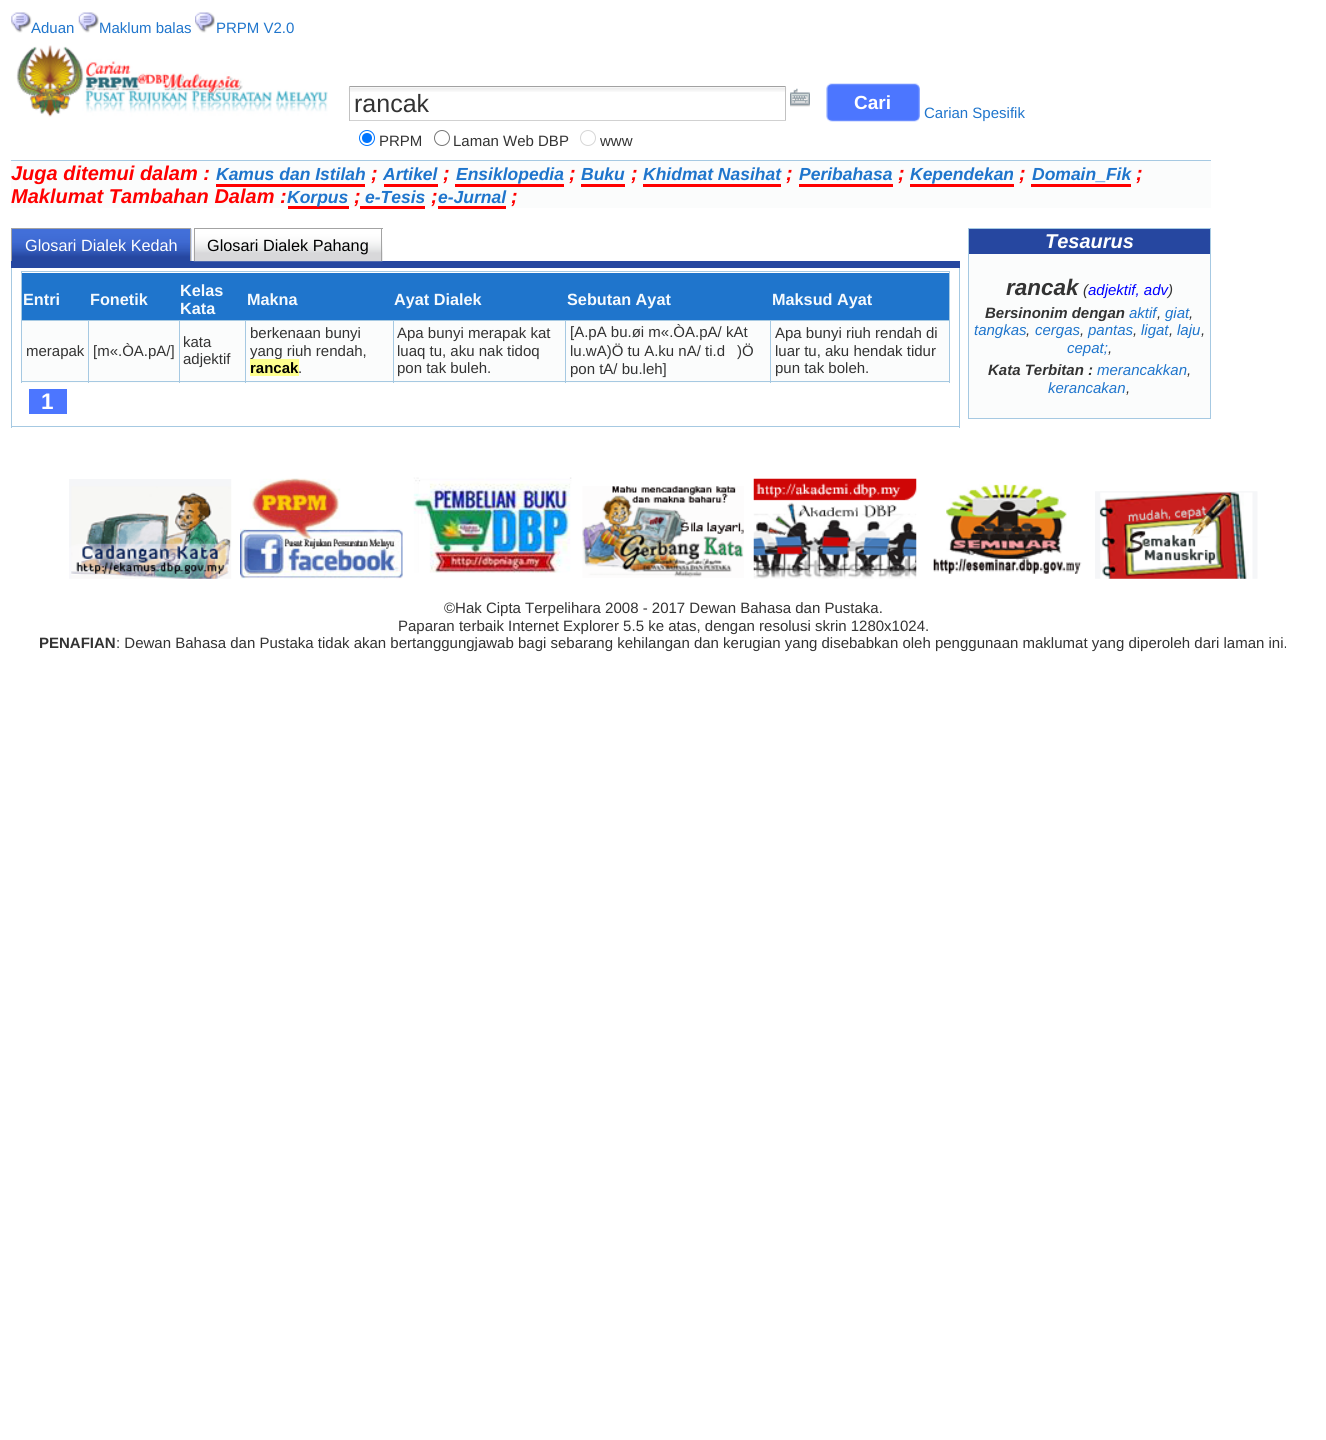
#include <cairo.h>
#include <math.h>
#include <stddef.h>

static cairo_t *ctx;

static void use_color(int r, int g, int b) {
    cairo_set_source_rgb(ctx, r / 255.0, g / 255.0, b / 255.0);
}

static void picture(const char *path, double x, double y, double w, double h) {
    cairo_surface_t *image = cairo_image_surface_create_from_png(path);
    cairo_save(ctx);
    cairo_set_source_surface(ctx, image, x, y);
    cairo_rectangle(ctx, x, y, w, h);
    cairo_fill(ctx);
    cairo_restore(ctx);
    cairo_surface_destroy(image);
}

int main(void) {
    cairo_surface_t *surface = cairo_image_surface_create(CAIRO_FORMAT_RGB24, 1326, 1440);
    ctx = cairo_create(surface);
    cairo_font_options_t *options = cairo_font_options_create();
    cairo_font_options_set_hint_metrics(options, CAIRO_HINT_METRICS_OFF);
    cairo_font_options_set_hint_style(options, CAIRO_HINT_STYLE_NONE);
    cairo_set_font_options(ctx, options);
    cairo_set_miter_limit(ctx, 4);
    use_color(255, 255, 255);
    cairo_paint(ctx);
    picture("img1.png", 11, 12, 21, 21);
    cairo_select_font_face(ctx, "Liberation Sans", CAIRO_FONT_SLANT_NORMAL, CAIRO_FONT_WEIGHT_NORMAL);
    cairo_set_font_size(ctx, 15);
    use_color(31, 117, 204);
    cairo_move_to(ctx, 31, 33);
    cairo_show_text(ctx, "Aduan");
    picture("img2.png", 78, 12, 21, 21);
    cairo_move_to(ctx, 99, 33);
    cairo_show_text(ctx, "Maklum balas");
    picture("img3.png", 195, 12, 20, 21);
    cairo_move_to(ctx, 216, 33);
    cairo_show_text(ctx, "PRPM V2.0");
    picture("img4.png", 16, 45, 312, 72);
    picture("img5.png", 348, 87, 439, 5);
    use_color(161, 161, 161);
    cairo_rectangle(ctx, 349, 86, 437, 1);
    cairo_fill(ctx);
    use_color(193, 193, 193);
    cairo_rectangle(ctx, 785, 86, 1, 35);
    cairo_fill(ctx);
    use_color(209, 209, 209);
    cairo_rectangle(ctx, 349, 120, 437, 1);
    cairo_fill(ctx);
    use_color(193, 193, 193);
    cairo_rectangle(ctx, 349, 86, 1, 35);
    cairo_fill(ctx);
    cairo_set_font_size(ctx, 25);
    use_color(51, 51, 51);
    cairo_move_to(ctx, 354, 112);
    cairo_show_text(ctx, "rancak");
    picture("img6.png", 790, 88, 20, 19);
    picture("img7.png", 826, 83, 94, 39);
    cairo_select_font_face(ctx, "Liberation Sans", CAIRO_FONT_SLANT_NORMAL, CAIRO_FONT_WEIGHT_BOLD);
    cairo_set_font_size(ctx, 19);
    use_color(255, 255, 255);
    cairo_move_to(ctx, 854, 109);
    cairo_show_text(ctx, "Cari");
    cairo_select_font_face(ctx, "Liberation Sans", CAIRO_FONT_SLANT_NORMAL, CAIRO_FONT_WEIGHT_NORMAL);
    cairo_set_font_size(ctx, 15);
    use_color(31, 117, 204);
    cairo_move_to(ctx, 924, 118);
    cairo_show_text(ctx, "Carian Spesifik");
    cairo_new_path(ctx);
    cairo_arc(ctx, 367, 138, 7.5, 0, 2 * M_PI);
    use_color(0, 117, 255);
    cairo_set_line_width(ctx, 1);
    cairo_stroke(ctx);
    cairo_arc(ctx, 367, 138, 5, 0, 2 * M_PI);
    cairo_fill(ctx);
    use_color(51, 51, 51);
    cairo_move_to(ctx, 379, 146);
    cairo_show_text(ctx, "PRPM");
    cairo_new_path(ctx);
    cairo_arc(ctx, 442, 138, 7.5, 0, 2 * M_PI);
    use_color(118, 118, 118);
    cairo_stroke(ctx);
    use_color(51, 51, 51);
    cairo_move_to(ctx, 453, 146);
    cairo_show_text(ctx, "Laman Web DBP");
    cairo_new_path(ctx);
    cairo_arc(ctx, 588, 138, 7.5, 0, 2 * M_PI);
    use_color(214, 214, 214);
    cairo_stroke(ctx);
    use_color(51, 51, 51);
    cairo_move_to(ctx, 600, 146);
    cairo_show_text(ctx, "www");
    use_color(251, 252, 252);
    cairo_rectangle(ctx, 11, 161, 1200, 47);
    cairo_fill(ctx);
    use_color(166, 201, 226);
    cairo_rectangle(ctx, 11, 160, 1200, 1);
    cairo_fill(ctx);
    cairo_select_font_face(ctx, "Liberation Sans", CAIRO_FONT_SLANT_ITALIC, CAIRO_FONT_WEIGHT_BOLD);
    cairo_set_font_size(ctx, 20);
    use_color(255, 0, 0);
    cairo_move_to(ctx, 11, 180);
    cairo_show_text(ctx, "Juga ditemui dalam :");
    cairo_set_font_size(ctx, 17.5);
    use_color(31, 117, 204);
    cairo_move_to(ctx, 216, 180);
    cairo_show_text(ctx, "Kamus dan Istilah");
    use_color(255, 0, 0);
    cairo_rectangle(ctx, 216, 184, 149, 3);
    cairo_fill(ctx);
    cairo_set_font_size(ctx, 20);
    cairo_move_to(ctx, 371, 180);
    cairo_show_text(ctx, ";");
    cairo_set_font_size(ctx, 17.5);
    use_color(31, 117, 204);
    cairo_move_to(ctx, 383, 180);
    cairo_show_text(ctx, "Artikel");
    use_color(255, 0, 0);
    cairo_rectangle(ctx, 384, 184, 54, 3);
    cairo_fill(ctx);
    cairo_set_font_size(ctx, 20);
    cairo_move_to(ctx, 443, 180);
    cairo_show_text(ctx, ";");
    cairo_set_font_size(ctx, 17.5);
    use_color(31, 117, 204);
    cairo_move_to(ctx, 456, 180);
    cairo_show_text(ctx, "Ensiklopedia");
    use_color(255, 0, 0);
    cairo_rectangle(ctx, 455, 184, 109, 3);
    cairo_fill(ctx);
    cairo_set_font_size(ctx, 20);
    cairo_move_to(ctx, 569, 180);
    cairo_show_text(ctx, ";");
    cairo_set_font_size(ctx, 17.5);
    use_color(31, 117, 204);
    cairo_move_to(ctx, 581, 180);
    cairo_show_text(ctx, "Buku");
    use_color(255, 0, 0);
    cairo_rectangle(ctx, 581, 184, 44, 3);
    cairo_fill(ctx);
    cairo_set_font_size(ctx, 20);
    cairo_move_to(ctx, 631, 180);
    cairo_show_text(ctx, ";");
    cairo_set_font_size(ctx, 17.5);
    use_color(31, 117, 204);
    cairo_move_to(ctx, 643, 180);
    cairo_show_text(ctx, "Khidmat Nasihat");
    use_color(255, 0, 0);
    cairo_rectangle(ctx, 643, 184, 138, 3);
    cairo_fill(ctx);
    cairo_set_font_size(ctx, 20);
    cairo_move_to(ctx, 786, 180);
    cairo_show_text(ctx, ";");
    cairo_set_font_size(ctx, 17.5);
    use_color(31, 117, 204);
    cairo_move_to(ctx, 799, 180);
    cairo_show_text(ctx, "Peribahasa");
    use_color(255, 0, 0);
    cairo_rectangle(ctx, 799, 184, 94, 3);
    cairo_fill(ctx);
    cairo_set_font_size(ctx, 20);
    cairo_move_to(ctx, 898, 180);
    cairo_show_text(ctx, ";");
    cairo_set_font_size(ctx, 17.5);
    use_color(31, 117, 204);
    cairo_move_to(ctx, 910, 180);
    cairo_show_text(ctx, "Kependekan");
    use_color(255, 0, 0);
    cairo_rectangle(ctx, 910, 184, 104, 3);
    cairo_fill(ctx);
    cairo_set_font_size(ctx, 20);
    cairo_move_to(ctx, 1019, 180);
    cairo_show_text(ctx, ";");
    cairo_set_font_size(ctx, 17.5);
    use_color(31, 117, 204);
    cairo_move_to(ctx, 1032, 180);
    cairo_show_text(ctx, "Domain_Fik");
    use_color(255, 0, 0);
    cairo_rectangle(ctx, 1031, 184, 100, 3);
    cairo_fill(ctx);
    cairo_set_font_size(ctx, 20);
    cairo_move_to(ctx, 1136, 180);
    cairo_show_text(ctx, ";");
    cairo_move_to(ctx, 11, 203);
    cairo_show_text(ctx, "Maklumat Tambahan Dalam :");
    cairo_rectangle(ctx, 288, 206, 61, 3);
    cairo_fill(ctx);
    cairo_set_font_size(ctx, 17.5);
    use_color(31, 117, 204);
    cairo_move_to(ctx, 287, 203);
    cairo_show_text(ctx, "Korpus");
    cairo_set_font_size(ctx, 20);
    use_color(255, 0, 0);
    cairo_move_to(ctx, 354, 203);
    cairo_show_text(ctx, ";");
    cairo_set_font_size(ctx, 17.5);
    use_color(31, 117, 204);
    cairo_move_to(ctx, 365, 203);
    cairo_show_text(ctx, "e-Tesis");
    use_color(255, 0, 0);
    cairo_rectangle(ctx, 360, 206, 65, 3);
    cairo_fill(ctx);
    cairo_set_font_size(ctx, 20);
    cairo_move_to(ctx, 431, 203);
    cairo_show_text(ctx, ";");
    cairo_set_font_size(ctx, 17.5);
    use_color(31, 117, 204);
    cairo_move_to(ctx, 438, 203);
    cairo_show_text(ctx, "e-Jurnal");
    use_color(255, 0, 0);
    cairo_rectangle(ctx, 438, 206, 68, 3);
    cairo_fill(ctx);
    cairo_set_font_size(ctx, 20);
    cairo_move_to(ctx, 511, 203);
    cairo_show_text(ctx, ";");
    use_color(38, 71, 160);
    cairo_rectangle(ctx, 11, 261, 949, 7);
    cairo_fill(ctx);
    picture("img8.png", 12, 228, 180, 33);
    use_color(163, 163, 163);
    cairo_rectangle(ctx, 11, 228, 180, 1);
    cairo_fill(ctx);
    cairo_rectangle(ctx, 190, 228, 1, 33);
    cairo_fill(ctx);
    cairo_rectangle(ctx, 11, 228, 1, 33);
    cairo_fill(ctx);
    cairo_select_font_face(ctx, "Liberation Sans", CAIRO_FONT_SLANT_NORMAL, CAIRO_FONT_WEIGHT_NORMAL);
    cairo_set_font_size(ctx, 16.25);
    use_color(255, 255, 255);
    cairo_move_to(ctx, 25, 251);
    cairo_show_text(ctx, "Glosari Dialek Kedah");
    picture("img9.png", 193, 229, 190, 33);
    use_color(163, 163, 163);
    cairo_rectangle(ctx, 194, 228, 189, 1);
    cairo_fill(ctx);
    cairo_rectangle(ctx, 381, 228, 1, 33);
    cairo_fill(ctx);
    cairo_rectangle(ctx, 194, 228, 1, 33);
    cairo_fill(ctx);
    use_color(0, 0, 0);
    cairo_move_to(ctx, 207, 251);
    cairo_show_text(ctx, "Glosari Dialek Pahang");
    use_color(166, 201, 226);
    cairo_rectangle(ctx, 959, 268, 1, 160);
    cairo_fill(ctx);
    cairo_rectangle(ctx, 11, 426, 949, 1);
    cairo_fill(ctx);
    cairo_rectangle(ctx, 11, 268, 1, 160);
    cairo_fill(ctx);
    cairo_rectangle(ctx, 21, 271, 929, 1);
    cairo_fill(ctx);
    cairo_rectangle(ctx, 949, 271, 1, 112);
    cairo_fill(ctx);
    use_color(251, 252, 252);
    cairo_rectangle(ctx, 22, 321, 66, 62);
    cairo_fill(ctx);
    cairo_rectangle(ctx, 89, 321, 90, 62);
    cairo_fill(ctx);
    cairo_rectangle(ctx, 180, 321, 65, 62);
    cairo_fill(ctx);
    cairo_rectangle(ctx, 246, 321, 147, 62);
    cairo_fill(ctx);
    cairo_rectangle(ctx, 394, 321, 171, 62);
    cairo_fill(ctx);
    cairo_rectangle(ctx, 566, 321, 204, 62);
    cairo_fill(ctx);
    cairo_rectangle(ctx, 771, 321, 178, 62);
    cairo_fill(ctx);
    use_color(166, 201, 226);
    cairo_rectangle(ctx, 21, 381, 929, 1);
    cairo_fill(ctx);
    cairo_rectangle(ctx, 21, 271, 1, 112);
    cairo_fill(ctx);
    use_color(31, 117, 204);
    cairo_rectangle(ctx, 22, 273, 927, 47);
    cairo_fill(ctx);
    cairo_select_font_face(ctx, "Liberation Sans", CAIRO_FONT_SLANT_NORMAL, CAIRO_FONT_WEIGHT_BOLD);
    use_color(245, 250, 254);
    cairo_move_to(ctx, 23, 305);
    cairo_show_text(ctx, "Entri");
    cairo_move_to(ctx, 90, 305);
    cairo_show_text(ctx, "Fonetik");
    cairo_move_to(ctx, 180, 296);
    cairo_show_text(ctx, "Kelas");
    cairo_move_to(ctx, 180, 314);
    cairo_show_text(ctx, "Kata");
    cairo_move_to(ctx, 247, 305);
    cairo_show_text(ctx, "Makna");
    cairo_move_to(ctx, 394, 305);
    cairo_show_text(ctx, "Ayat Dialek");
    cairo_move_to(ctx, 567, 305);
    cairo_show_text(ctx, "Sebutan Ayat");
    cairo_move_to(ctx, 772, 305);
    cairo_show_text(ctx, "Maksud Ayat");
    use_color(166, 201, 226);
    cairo_rectangle(ctx, 770, 320, 180, 1);
    cairo_fill(ctx);
    cairo_rectangle(ctx, 770, 320, 1, 63);
    cairo_fill(ctx);
    cairo_rectangle(ctx, 565, 320, 206, 1);
    cairo_fill(ctx);
    cairo_rectangle(ctx, 565, 320, 1, 63);
    cairo_fill(ctx);
    cairo_rectangle(ctx, 393, 320, 173, 1);
    cairo_fill(ctx);
    cairo_rectangle(ctx, 393, 320, 1, 63);
    cairo_fill(ctx);
    cairo_rectangle(ctx, 245, 320, 149, 1);
    cairo_fill(ctx);
    cairo_rectangle(ctx, 245, 320, 1, 63);
    cairo_fill(ctx);
    cairo_rectangle(ctx, 179, 320, 67, 1);
    cairo_fill(ctx);
    cairo_rectangle(ctx, 179, 320, 1, 63);
    cairo_fill(ctx);
    cairo_rectangle(ctx, 88, 320, 92, 1);
    cairo_fill(ctx);
    cairo_rectangle(ctx, 88, 320, 1, 63);
    cairo_fill(ctx);
    cairo_rectangle(ctx, 21, 320, 68, 1);
    cairo_fill(ctx);
    cairo_select_font_face(ctx, "Liberation Sans", CAIRO_FONT_SLANT_NORMAL, CAIRO_FONT_WEIGHT_NORMAL);
    cairo_set_font_size(ctx, 15);
    use_color(51, 51, 51);
    cairo_move_to(ctx, 26, 356);
    cairo_show_text(ctx, "merapak");
    cairo_move_to(ctx, 93, 356);
    cairo_show_text(ctx, "[m«.ÒA.pA/]");
    cairo_move_to(ctx, 183, 347);
    cairo_show_text(ctx, "kata");
    cairo_move_to(ctx, 183, 364);
    cairo_show_text(ctx, "adjektif");
    cairo_move_to(ctx, 250, 338);
    cairo_show_text(ctx, "berkenaan bunyi");
    cairo_move_to(ctx, 250, 356);
    cairo_show_text(ctx, "yang riuh rendah,");
    use_color(254, 255, 141);
    cairo_rectangle(ctx, 250, 359, 49, 17);
    cairo_fill(ctx);
    cairo_select_font_face(ctx, "Liberation Sans", CAIRO_FONT_SLANT_NORMAL, CAIRO_FONT_WEIGHT_BOLD);
    use_color(0, 0, 0);
    cairo_move_to(ctx, 250, 373);
    cairo_show_text(ctx, "rancak");
    cairo_select_font_face(ctx, "Liberation Sans", CAIRO_FONT_SLANT_NORMAL, CAIRO_FONT_WEIGHT_NORMAL);
    use_color(51, 51, 51);
    cairo_move_to(ctx, 298, 373);
    cairo_show_text(ctx, ".");
    cairo_move_to(ctx, 397, 338);
    cairo_show_text(ctx, "Apa bunyi merapak kat");
    cairo_move_to(ctx, 397, 356);
    cairo_show_text(ctx, "luaq tu, aku nak tidoq");
    cairo_move_to(ctx, 397, 373);
    cairo_show_text(ctx, "pon tak buleh.");
    cairo_move_to(ctx, 570, 337);
    cairo_show_text(ctx, "[A.pA bu.øi m«.ÒA.pA/ kAt");
    cairo_move_to(ctx, 570, 356);
    cairo_show_text(ctx, "lu.wA)Ö tu A.ku nA/ ti.d");
    cairo_move_to(ctx, 737, 356);
    cairo_show_text(ctx, ")Ö");
    cairo_move_to(ctx, 570, 374);
    cairo_show_text(ctx, "pon tA/ bu.leh]");
    cairo_move_to(ctx, 775, 338);
    cairo_show_text(ctx, "Apa bunyi riuh rendah di");
    cairo_move_to(ctx, 775, 356);
    cairo_show_text(ctx, "luar tu, aku hendak tidur");
    cairo_move_to(ctx, 775, 373);
    cairo_show_text(ctx, "pun tak boleh.");
    use_color(76, 118, 255);
    cairo_rectangle(ctx, 29, 389, 38, 25);
    cairo_fill(ctx);
    cairo_select_font_face(ctx, "Liberation Sans", CAIRO_FONT_SLANT_NORMAL, CAIRO_FONT_WEIGHT_BOLD);
    cairo_set_font_size(ctx, 22.5);
    use_color(255, 255, 255);
    cairo_move_to(ctx, 41, 409);
    cairo_show_text(ctx, "1");
    use_color(166, 201, 226);
    cairo_rectangle(ctx, 968, 228, 243, 1);
    cairo_fill(ctx);
    use_color(251, 252, 252);
    cairo_rectangle(ctx, 969, 358, 242, 2);
    cairo_fill(ctx);
    use_color(166, 201, 226);
    cairo_rectangle(ctx, 1210, 228, 1, 191);
    cairo_fill(ctx);
    cairo_rectangle(ctx, 968, 418, 243, 1);
    cairo_fill(ctx);
    cairo_rectangle(ctx, 968, 228, 1, 191);
    cairo_fill(ctx);
    use_color(38, 71, 160);
    cairo_rectangle(ctx, 969, 229, 241, 25);
    cairo_fill(ctx);
    cairo_select_font_face(ctx, "Liberation Sans", CAIRO_FONT_SLANT_ITALIC, CAIRO_FONT_WEIGHT_BOLD);
    cairo_set_font_size(ctx, 20);
    use_color(255, 255, 255);
    cairo_move_to(ctx, 1045, 248);
    cairo_show_text(ctx, "Tesaurus");
    use_color(251, 252, 252);
    cairo_rectangle(ctx, 969, 254, 241, 104);
    cairo_fill(ctx);
    cairo_set_font_size(ctx, 22.5);
    use_color(51, 51, 51);
    cairo_move_to(ctx, 1006, 295);
    cairo_show_text(ctx, "rancak");
    cairo_select_font_face(ctx, "Liberation Sans", CAIRO_FONT_SLANT_ITALIC, CAIRO_FONT_WEIGHT_NORMAL);
    cairo_set_font_size(ctx, 15);
    cairo_move_to(ctx, 1083, 295);
    cairo_show_text(ctx, "(");
    use_color(0, 0, 255);
    cairo_move_to(ctx, 1088, 295);
    cairo_show_text(ctx, "adjektif, adv");
    use_color(51, 51, 51);
    cairo_move_to(ctx, 1168, 295);
    cairo_show_text(ctx, ")");
    cairo_select_font_face(ctx, "Liberation Sans", CAIRO_FONT_SLANT_ITALIC, CAIRO_FONT_WEIGHT_BOLD);
    cairo_move_to(ctx, 985, 318);
    cairo_show_text(ctx, "Bersinonim dengan");
    cairo_select_font_face(ctx, "Liberation Sans", CAIRO_FONT_SLANT_ITALIC, CAIRO_FONT_WEIGHT_NORMAL);
    use_color(31, 117, 204);
    cairo_move_to(ctx, 1129, 318);
    cairo_show_text(ctx, "aktif");
    cairo_move_to(ctx, 1165, 318);
    cairo_show_text(ctx, "giat");
    use_color(51, 51, 51);
    cairo_move_to(ctx, 1157, 318);
    cairo_show_text(ctx, ",");
    cairo_move_to(ctx, 1189, 318);
    cairo_show_text(ctx, ",");
    use_color(31, 117, 204);
    cairo_move_to(ctx, 974, 335);
    cairo_show_text(ctx, "tangkas");
    use_color(51, 51, 51);
    cairo_move_to(ctx, 1026, 335);
    cairo_show_text(ctx, ",");
    use_color(31, 117, 204);
    cairo_move_to(ctx, 1035, 335);
    cairo_show_text(ctx, "cergas");
    use_color(51, 51, 51);
    cairo_move_to(ctx, 1080, 335);
    cairo_show_text(ctx, ",");
    use_color(31, 117, 204);
    cairo_move_to(ctx, 1088, 335);
    cairo_show_text(ctx, "pantas");
    use_color(51, 51, 51);
    cairo_move_to(ctx, 1133, 335);
    cairo_show_text(ctx, ",");
    use_color(31, 117, 204);
    cairo_move_to(ctx, 1141, 335);
    cairo_show_text(ctx, "ligat");
    use_color(51, 51, 51);
    cairo_move_to(ctx, 1169, 335);
    cairo_show_text(ctx, ",");
    use_color(31, 117, 204);
    cairo_move_to(ctx, 1177, 335);
    cairo_show_text(ctx, "laju");
    use_color(51, 51, 51);
    cairo_move_to(ctx, 1201, 335);
    cairo_show_text(ctx, ",");
    use_color(31, 117, 204);
    cairo_move_to(ctx, 1067, 353);
    cairo_show_text(ctx, "cepat;");
    use_color(51, 51, 51);
    cairo_move_to(ctx, 1108, 353);
    cairo_show_text(ctx, ",");
    use_color(251, 252, 252);
    cairo_rectangle(ctx, 969, 360, 241, 58);
    cairo_fill(ctx);
    cairo_select_font_face(ctx, "Liberation Sans", CAIRO_FONT_SLANT_ITALIC, CAIRO_FONT_WEIGHT_BOLD);
    use_color(51, 51, 51);
    cairo_move_to(ctx, 988, 375);
    cairo_show_text(ctx, "Kata Terbitan :");
    cairo_select_font_face(ctx, "Liberation Sans", CAIRO_FONT_SLANT_ITALIC, CAIRO_FONT_WEIGHT_NORMAL);
    use_color(31, 117, 204);
    cairo_move_to(ctx, 1097, 375);
    cairo_show_text(ctx, "merancakkan");
    use_color(51, 51, 51);
    cairo_move_to(ctx, 1187, 375);
    cairo_show_text(ctx, ",");
    use_color(31, 117, 204);
    cairo_move_to(ctx, 1048, 393);
    cairo_show_text(ctx, "kerancakan");
    use_color(51, 51, 51);
    cairo_move_to(ctx, 1126, 393);
    cairo_show_text(ctx, ",");
    picture("img10.png", 69, 479, 163, 100);
    picture("img11.png", 240, 478, 163, 101);
    picture("img12.png", 413, 477, 159, 96);
    picture("img13.png", 582, 486, 162, 92);
    picture("img14.png", 753, 478, 164, 101);
    picture("img15.png", 933, 484, 149, 90);
    picture("img16.png", 1095, 491, 163, 88);
    cairo_select_font_face(ctx, "Liberation Sans", CAIRO_FONT_SLANT_NORMAL, CAIRO_FONT_WEIGHT_NORMAL);
    cairo_move_to(ctx, 444, 613);
    cairo_show_text(ctx, "©Hak Cipta Terpelihara 2008 - 2017 Dewan Bahasa dan Pustaka.");
    cairo_move_to(ctx, 398, 631);
    cairo_show_text(ctx, "Paparan terbaik Internet Explorer 5.5 ke atas, dengan resolusi skrin 1280x1024.");
    cairo_select_font_face(ctx, "Liberation Sans", CAIRO_FONT_SLANT_NORMAL, CAIRO_FONT_WEIGHT_BOLD);
    cairo_move_to(ctx, 39, 648);
    cairo_show_text(ctx, "PENAFIAN");
    cairo_select_font_face(ctx, "Liberation Sans", CAIRO_FONT_SLANT_NORMAL, CAIRO_FONT_WEIGHT_NORMAL);
    cairo_move_to(ctx, 116, 648);
    cairo_show_text(ctx, ": Dewan Bahasa dan Pustaka tidak akan bertanggungjawab bagi sebarang kehilangan dan kerugian yang disebabkan oleh penggunaan maklumat yang diperoleh dari laman ini.");
    cairo_surface_write_to_png(surface, "result.png");
    cairo_font_options_destroy(options);
    cairo_destroy(ctx);
    cairo_surface_destroy(surface);
    return 0;
}
